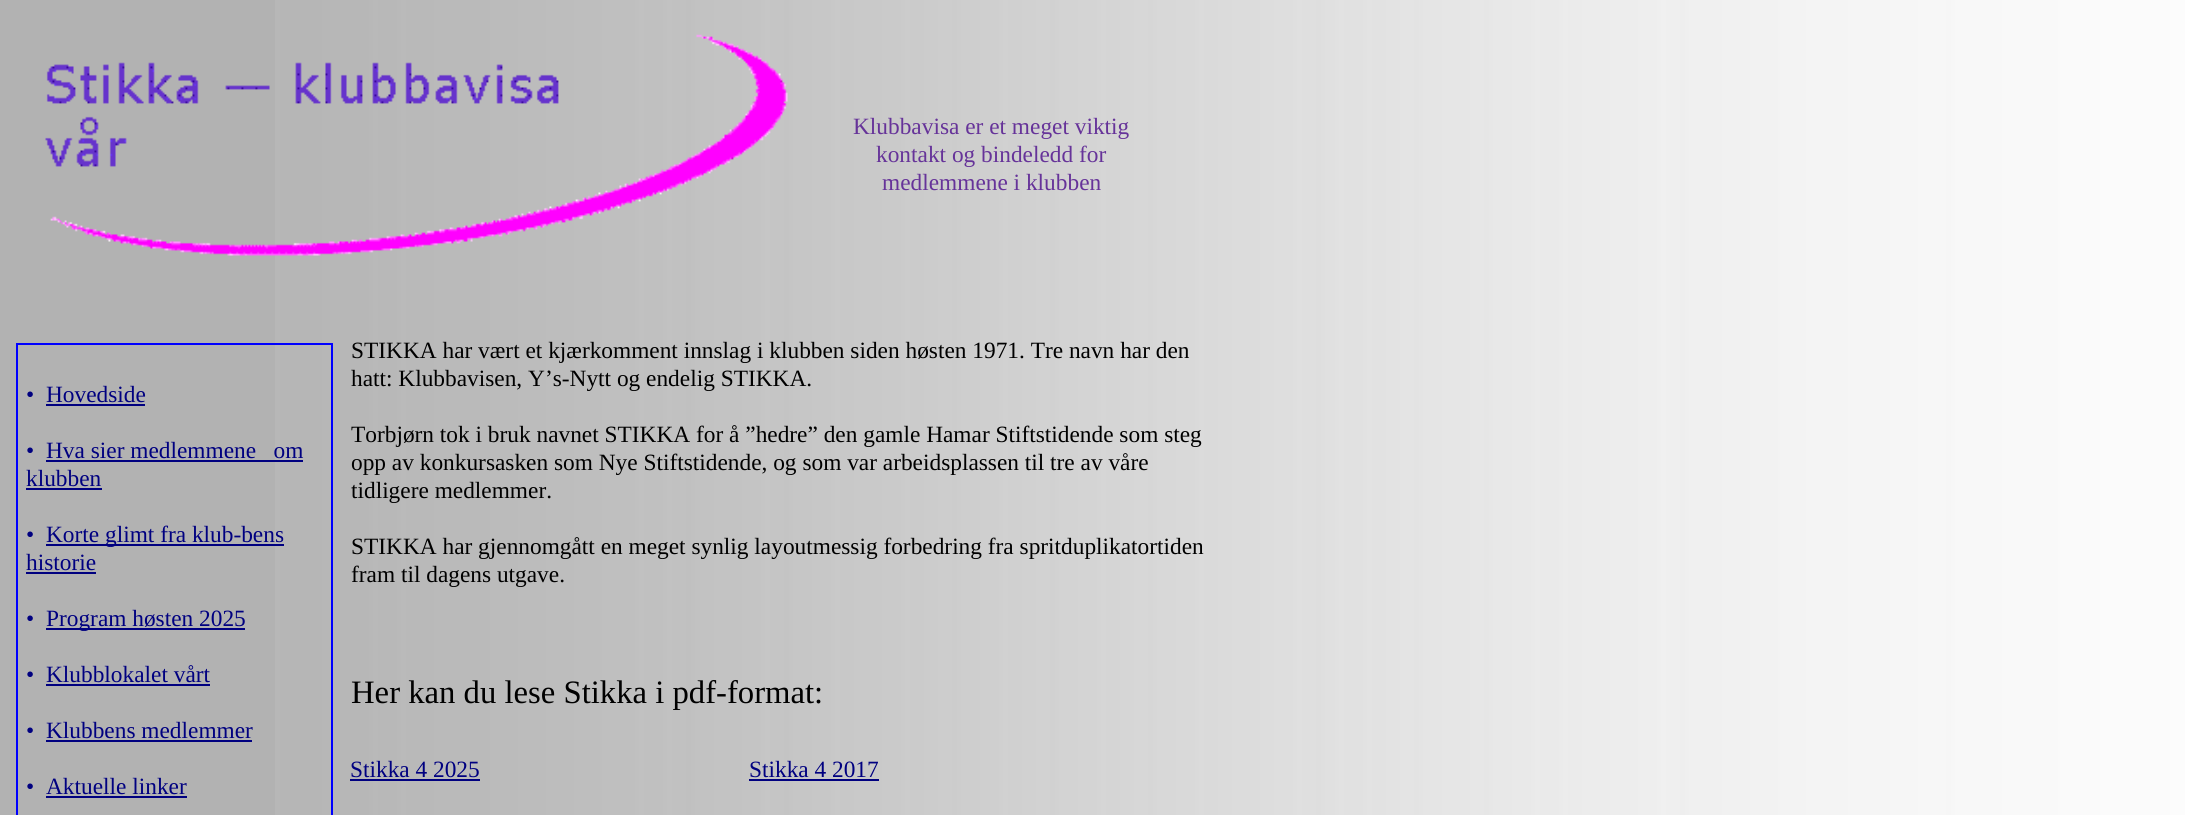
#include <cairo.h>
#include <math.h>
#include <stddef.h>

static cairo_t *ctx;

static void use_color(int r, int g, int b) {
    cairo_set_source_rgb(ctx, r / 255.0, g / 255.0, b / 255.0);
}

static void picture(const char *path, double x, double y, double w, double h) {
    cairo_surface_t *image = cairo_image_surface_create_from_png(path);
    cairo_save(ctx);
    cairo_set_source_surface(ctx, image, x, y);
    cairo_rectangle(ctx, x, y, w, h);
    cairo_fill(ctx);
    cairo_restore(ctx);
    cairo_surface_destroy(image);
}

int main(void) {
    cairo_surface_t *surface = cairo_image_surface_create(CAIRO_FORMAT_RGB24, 2185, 815);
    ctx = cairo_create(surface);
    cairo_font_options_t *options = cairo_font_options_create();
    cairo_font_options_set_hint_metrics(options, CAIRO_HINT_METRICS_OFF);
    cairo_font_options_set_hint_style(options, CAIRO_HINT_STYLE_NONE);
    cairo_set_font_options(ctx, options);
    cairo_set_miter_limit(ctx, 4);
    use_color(178, 178, 178);
    cairo_paint(ctx);
    picture("img1.png", 275, 0, 1910, 815);
    picture("img2.png", 45, 34, 743, 222);
    cairo_select_font_face(ctx, "Liberation Serif", CAIRO_FONT_SLANT_NORMAL, CAIRO_FONT_WEIGHT_NORMAL);
    cairo_set_font_size(ctx, 23.35);
    use_color(102, 51, 153);
    cairo_move_to(ctx, 853, 134);
    cairo_show_text(ctx, "Klubbavisa er et meget viktig");
    cairo_move_to(ctx, 876, 162);
    cairo_show_text(ctx, "kontakt og bindeledd for");
    cairo_move_to(ctx, 882, 190);
    cairo_show_text(ctx, "medlemmene i klubben");
    cairo_rectangle(ctx, 17, 344, 315, 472);
    use_color(0, 0, 255);
    cairo_stroke(ctx);
    use_color(0, 0, 128);
    cairo_move_to(ctx, 26, 402);
    cairo_show_text(ctx, "•");
    cairo_move_to(ctx, 46, 402);
    cairo_show_text(ctx, "Hovedside");
    cairo_rectangle(ctx, 46, 404, 99, 2);
    cairo_fill(ctx);
    cairo_move_to(ctx, 26, 458);
    cairo_show_text(ctx, "•");
    cairo_move_to(ctx, 46, 458);
    cairo_show_text(ctx, "Hva sier medlemmene   om");
    cairo_rectangle(ctx, 46, 460, 257, 2);
    cairo_fill(ctx);
    cairo_move_to(ctx, 26, 486);
    cairo_show_text(ctx, "klubben");
    cairo_rectangle(ctx, 26, 488, 76, 2);
    cairo_fill(ctx);
    cairo_move_to(ctx, 26, 542);
    cairo_show_text(ctx, "•");
    cairo_rectangle(ctx, 46, 544, 238, 2);
    cairo_fill(ctx);
    cairo_move_to(ctx, 46, 542);
    cairo_show_text(ctx, "Korte glimt fra klub-bens");
    cairo_move_to(ctx, 26, 570);
    cairo_show_text(ctx, "historie");
    cairo_rectangle(ctx, 26, 572, 70, 2);
    cairo_fill(ctx);
    cairo_move_to(ctx, 26, 626);
    cairo_show_text(ctx, "•");
    cairo_rectangle(ctx, 46, 628, 199, 2);
    cairo_fill(ctx);
    cairo_move_to(ctx, 46, 626);
    cairo_show_text(ctx, "Program høsten 2025");
    cairo_move_to(ctx, 26, 682);
    cairo_show_text(ctx, "•");
    cairo_move_to(ctx, 46, 682);
    cairo_show_text(ctx, "Klubblokalet vårt");
    cairo_rectangle(ctx, 46, 684, 164, 2);
    cairo_fill(ctx);
    cairo_move_to(ctx, 26, 738);
    cairo_show_text(ctx, "•");
    cairo_move_to(ctx, 46, 738);
    cairo_show_text(ctx, "Klubbens medlemmer");
    cairo_rectangle(ctx, 46, 740, 206, 2);
    cairo_fill(ctx);
    cairo_move_to(ctx, 26, 794);
    cairo_show_text(ctx, "•");
    cairo_move_to(ctx, 46, 794);
    cairo_show_text(ctx, "Aktuelle linker");
    cairo_rectangle(ctx, 46, 796, 141, 2);
    cairo_fill(ctx);
    use_color(0, 0, 0);
    cairo_move_to(ctx, 351, 358);
    cairo_show_text(ctx, "STIKKA har vært et kjærkomment innslag i klubben siden høsten 1971. Tre navn har den");
    cairo_move_to(ctx, 351, 386);
    cairo_show_text(ctx, "hatt: Klubbavisen, Y’s-Nytt og endelig STIKKA.");
    cairo_move_to(ctx, 351, 442);
    cairo_show_text(ctx, "Torbjørn tok i bruk navnet STIKKA for å ”hedre” den gamle Hamar Stiftstidende som steg");
    cairo_move_to(ctx, 351, 470);
    cairo_show_text(ctx, "opp av konkursasken som Nye Stiftstidende, og som var arbeidsplassen til tre av våre");
    cairo_move_to(ctx, 351, 498);
    cairo_show_text(ctx, "tidligere medlemmer.");
    cairo_move_to(ctx, 351, 554);
    cairo_show_text(ctx, "STIKKA har gjennomgått en meget synlig layoutmessig forbedring fra spritduplikatortiden");
    cairo_move_to(ctx, 351, 582);
    cairo_show_text(ctx, "fram til dagens utgave.");
    cairo_set_font_size(ctx, 32.7);
    cairo_move_to(ctx, 351, 703);
    cairo_show_text(ctx, "Her kan du lese Stikka i pdf-format:");
    cairo_set_font_size(ctx, 23.35);
    use_color(0, 0, 128);
    cairo_move_to(ctx, 350, 777);
    cairo_show_text(ctx, "Stikka 4 2025");
    cairo_rectangle(ctx, 350, 779, 130, 2);
    cairo_fill(ctx);
    cairo_move_to(ctx, 749, 777);
    cairo_show_text(ctx, "Stikka 4 2017");
    cairo_rectangle(ctx, 749, 779, 130, 2);
    cairo_fill(ctx);
    cairo_surface_write_to_png(surface, "result.png");
    cairo_font_options_destroy(options);
    cairo_destroy(ctx);
    cairo_surface_destroy(surface);
    return 0;
}
